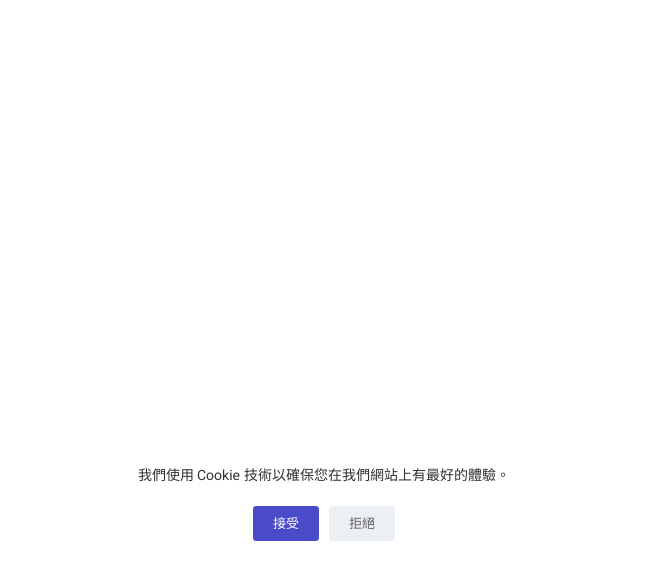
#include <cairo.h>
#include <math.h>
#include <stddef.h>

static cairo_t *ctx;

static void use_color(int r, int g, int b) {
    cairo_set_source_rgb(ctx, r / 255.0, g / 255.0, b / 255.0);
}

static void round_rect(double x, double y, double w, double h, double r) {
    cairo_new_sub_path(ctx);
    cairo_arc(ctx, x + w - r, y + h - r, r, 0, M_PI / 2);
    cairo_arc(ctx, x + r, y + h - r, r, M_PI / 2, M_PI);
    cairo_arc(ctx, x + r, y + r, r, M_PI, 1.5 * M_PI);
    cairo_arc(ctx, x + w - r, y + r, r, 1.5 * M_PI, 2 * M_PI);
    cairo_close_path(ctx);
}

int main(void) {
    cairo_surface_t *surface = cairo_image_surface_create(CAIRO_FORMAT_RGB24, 648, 561);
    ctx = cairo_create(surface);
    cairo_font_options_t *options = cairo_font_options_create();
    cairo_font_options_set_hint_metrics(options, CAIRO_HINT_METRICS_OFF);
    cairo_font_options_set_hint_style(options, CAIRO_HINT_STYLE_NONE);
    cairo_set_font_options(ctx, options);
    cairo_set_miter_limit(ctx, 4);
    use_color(255, 255, 255);
    cairo_paint(ctx);
    cairo_select_font_face(ctx, "Noto Sans CJK TC", CAIRO_FONT_SLANT_NORMAL, CAIRO_FONT_WEIGHT_NORMAL);
    cairo_set_font_size(ctx, 14);
    use_color(48, 48, 48);
    cairo_move_to(ctx, 138, 480);
    cairo_show_text(ctx, "我們使用");
    cairo_select_font_face(ctx, "Roboto", CAIRO_FONT_SLANT_NORMAL, CAIRO_FONT_WEIGHT_NORMAL);
    cairo_move_to(ctx, 197, 480);
    cairo_show_text(ctx, "Cookie");
    cairo_select_font_face(ctx, "Noto Sans CJK TC", CAIRO_FONT_SLANT_NORMAL, CAIRO_FONT_WEIGHT_NORMAL);
    cairo_move_to(ctx, 244, 480);
    cairo_show_text(ctx, "技術以確保您在我們網站上有最好的體驗。");
    use_color(73, 75, 201);
    round_rect(253, 506, 66, 35, 3);
    cairo_fill(ctx);
    cairo_set_font_size(ctx, 13);
    use_color(255, 255, 255);
    cairo_move_to(ctx, 273, 528);
    cairo_show_text(ctx, "接受");
    use_color(236, 239, 243);
    round_rect(329, 506, 66, 35, 3);
    cairo_fill(ctx);
    use_color(95, 95, 95);
    cairo_move_to(ctx, 349, 528);
    cairo_show_text(ctx, "拒絕");
    cairo_surface_write_to_png(surface, "result.png");
    cairo_font_options_destroy(options);
    cairo_destroy(ctx);
    cairo_surface_destroy(surface);
    return 0;
}
